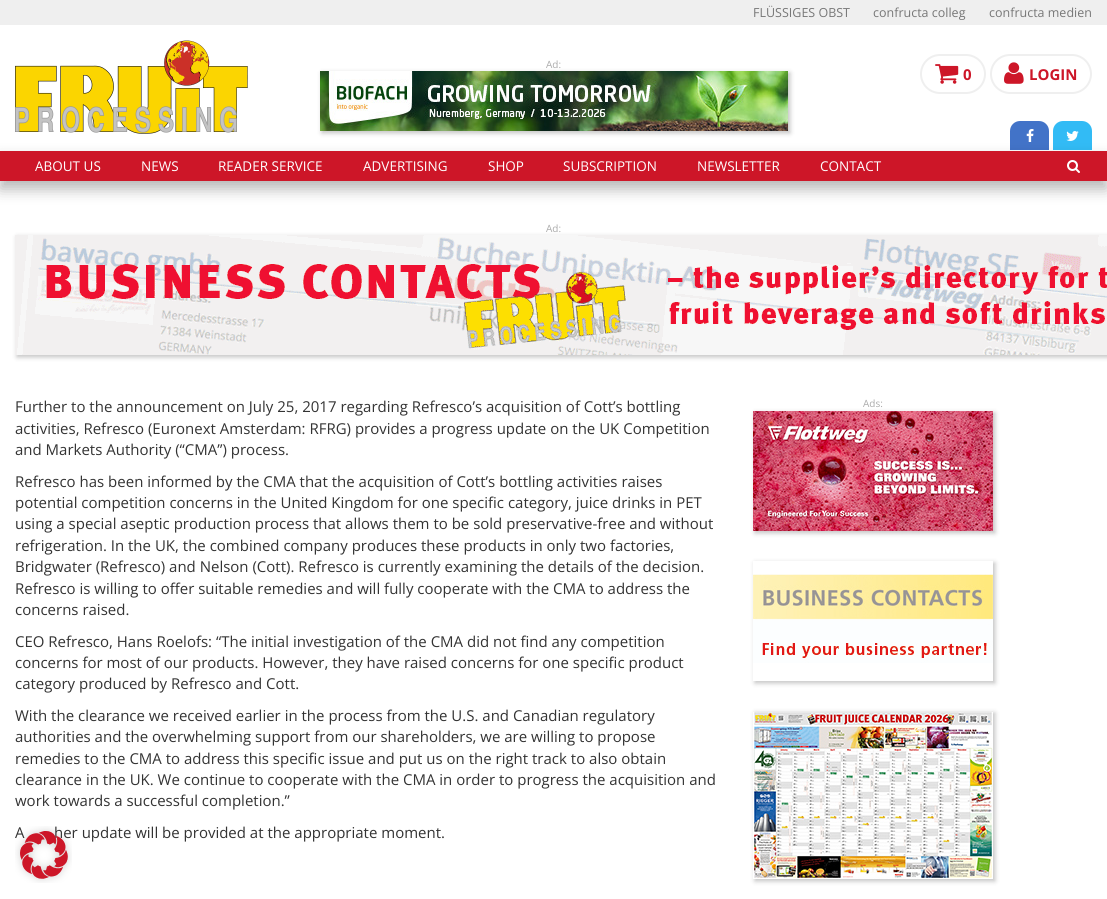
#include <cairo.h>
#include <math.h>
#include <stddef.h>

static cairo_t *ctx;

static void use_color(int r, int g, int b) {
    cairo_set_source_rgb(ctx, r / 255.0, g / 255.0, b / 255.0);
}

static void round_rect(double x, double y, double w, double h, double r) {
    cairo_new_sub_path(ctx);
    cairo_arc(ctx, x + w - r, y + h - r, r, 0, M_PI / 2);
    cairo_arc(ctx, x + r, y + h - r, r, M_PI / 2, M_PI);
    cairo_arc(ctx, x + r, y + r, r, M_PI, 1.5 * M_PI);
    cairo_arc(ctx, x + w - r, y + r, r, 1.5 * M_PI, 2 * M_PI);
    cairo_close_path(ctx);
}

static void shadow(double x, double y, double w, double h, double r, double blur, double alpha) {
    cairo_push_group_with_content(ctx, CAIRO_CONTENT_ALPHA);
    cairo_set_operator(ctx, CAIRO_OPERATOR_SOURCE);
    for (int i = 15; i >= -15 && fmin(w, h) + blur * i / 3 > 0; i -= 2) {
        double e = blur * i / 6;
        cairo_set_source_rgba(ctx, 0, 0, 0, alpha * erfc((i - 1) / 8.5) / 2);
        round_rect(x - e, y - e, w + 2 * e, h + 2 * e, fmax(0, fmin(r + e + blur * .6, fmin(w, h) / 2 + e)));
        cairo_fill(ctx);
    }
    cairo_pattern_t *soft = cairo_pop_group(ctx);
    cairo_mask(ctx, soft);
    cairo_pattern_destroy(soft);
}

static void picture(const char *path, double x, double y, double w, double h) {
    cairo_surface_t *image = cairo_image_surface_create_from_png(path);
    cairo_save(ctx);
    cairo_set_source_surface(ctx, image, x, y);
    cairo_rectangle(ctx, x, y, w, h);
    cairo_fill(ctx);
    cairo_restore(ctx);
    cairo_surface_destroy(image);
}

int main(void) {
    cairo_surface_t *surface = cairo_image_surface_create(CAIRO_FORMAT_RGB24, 1107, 899);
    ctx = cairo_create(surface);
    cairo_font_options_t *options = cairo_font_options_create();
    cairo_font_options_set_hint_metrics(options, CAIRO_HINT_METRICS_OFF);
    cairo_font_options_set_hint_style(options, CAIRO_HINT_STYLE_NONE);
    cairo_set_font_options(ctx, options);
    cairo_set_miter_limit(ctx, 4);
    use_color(255, 255, 255);
    cairo_paint(ctx);
    use_color(239, 239, 239);
    cairo_rectangle(ctx, 0, 0, 1107, 25);
    cairo_fill(ctx);
    cairo_select_font_face(ctx, "Open Sans", CAIRO_FONT_SLANT_NORMAL, CAIRO_FONT_WEIGHT_NORMAL);
    cairo_set_font_size(ctx, 12.5);
    use_color(119, 119, 119);
    cairo_move_to(ctx, 753, 17);
    cairo_show_text(ctx, "FLÜSSIGES OBST");
    cairo_move_to(ctx, 873, 17);
    cairo_show_text(ctx, "confructa colleg");
    cairo_move_to(ctx, 989, 17);
    cairo_show_text(ctx, "confructa medien");
    picture("img1.png", 15, 40, 233, 94);
    cairo_set_font_size(ctx, 10);
    use_color(170, 170, 170);
    cairo_move_to(ctx, 546, 68);
    cairo_show_text(ctx, "Ad:");
    use_color(0, 0, 0);
    shadow(322, 73, 468, 60, 0, 2.5, 0.25);
    picture("img2.png", 320, 71, 468, 60);
    round_rect(921, 55, 64, 38, 19);
    use_color(239, 239, 239);
    cairo_stroke(ctx);
    picture("img3.png", 935, 64, 24, 20);
    cairo_select_font_face(ctx, "Open Sans", CAIRO_FONT_SLANT_NORMAL, CAIRO_FONT_WEIGHT_BOLD);
    cairo_set_font_size(ctx, 15);
    use_color(205, 22, 40);
    cairo_move_to(ctx, 963, 80);
    cairo_show_text(ctx, "0");
    round_rect(991, 55, 100, 38, 19);
    use_color(239, 239, 239);
    cairo_stroke(ctx);
    picture("img4.png", 1004, 62, 20, 22);
    use_color(205, 22, 40);
    cairo_move_to(ctx, 1029, 80);
    cairo_show_text(ctx, "LOGIN");
    use_color(66, 115, 200);
    cairo_new_path(ctx);
    cairo_move_to(ctx, 1020, 121);
    cairo_line_to(ctx, 1039, 121);
    cairo_curve_to(ctx, 1044.5, 121, 1049, 125.5, 1049, 131);
    cairo_line_to(ctx, 1049, 151);
    cairo_line_to(ctx, 1010, 151);
    cairo_line_to(ctx, 1010, 131);
    cairo_curve_to(ctx, 1010, 125.5, 1014.5, 121, 1020, 121);
    cairo_close_path(ctx);
    cairo_fill(ctx);
    use_color(255, 255, 255);
    cairo_rectangle(ctx, 1010, 150, 39, 1);
    cairo_fill(ctx);
    picture("img5.png", 1026, 129, 8, 13);
    use_color(50, 187, 245);
    cairo_new_path(ctx);
    cairo_move_to(ctx, 1063, 121);
    cairo_line_to(ctx, 1082, 121);
    cairo_curve_to(ctx, 1087.5, 121, 1092, 125.5, 1092, 131);
    cairo_line_to(ctx, 1092, 151);
    cairo_line_to(ctx, 1053, 151);
    cairo_line_to(ctx, 1053, 131);
    cairo_curve_to(ctx, 1053, 125.5, 1057.5, 121, 1063, 121);
    cairo_close_path(ctx);
    cairo_fill(ctx);
    use_color(255, 255, 255);
    cairo_rectangle(ctx, 1053, 150, 39, 1);
    cairo_fill(ctx);
    picture("img6.png", 1066, 131, 13, 10);
    use_color(0, 0, 0);
    shadow(0, 159, 1107, 30, 0, 7.5, 0.29);
    use_color(205, 22, 40);
    cairo_rectangle(ctx, 0, 151, 1107, 30);
    cairo_fill(ctx);
    cairo_select_font_face(ctx, "Open Sans", CAIRO_FONT_SLANT_NORMAL, CAIRO_FONT_WEIGHT_NORMAL);
    cairo_set_font_size(ctx, 13.5);
    use_color(255, 255, 255);
    cairo_move_to(ctx, 35, 171);
    cairo_show_text(ctx, "ABOUT US");
    cairo_move_to(ctx, 141, 171);
    cairo_show_text(ctx, "NEWS");
    cairo_move_to(ctx, 218, 171);
    cairo_show_text(ctx, "READER SERVICE");
    cairo_move_to(ctx, 363, 171);
    cairo_show_text(ctx, "ADVERTISING");
    cairo_move_to(ctx, 488, 171);
    cairo_show_text(ctx, "SHOP");
    cairo_move_to(ctx, 563, 171);
    cairo_show_text(ctx, "SUBSCRIPTION");
    cairo_move_to(ctx, 697, 171);
    cairo_show_text(ctx, "NEWSLETTER");
    cairo_move_to(ctx, 820, 171);
    cairo_show_text(ctx, "CONTACT");
    picture("img7.png", 1067, 160, 13, 13);
    cairo_set_font_size(ctx, 10);
    use_color(170, 170, 170);
    cairo_move_to(ctx, 546, 232);
    cairo_show_text(ctx, "Ad:");
    use_color(0, 0, 0);
    shadow(17, 237, 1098, 120, 0, 2.5, 0.25);
    picture("img8.png", 15, 235, 1092, 120);
    cairo_set_font_size(ctx, 15);
    use_color(51, 51, 51);
    cairo_move_to(ctx, 15, 412);
    cairo_show_text(ctx, "Further to the announcement on July 25, 2017 regarding Refresco’s acquisition of Cott’s bottling");
    cairo_move_to(ctx, 15, 434);
    cairo_show_text(ctx, "activities, Refresco (Euronext Amsterdam: RFRG) provides a progress update on the UK Competition");
    cairo_move_to(ctx, 15, 455);
    cairo_show_text(ctx, "and Markets Authority (“CMA”) process.");
    cairo_move_to(ctx, 15, 487);
    cairo_show_text(ctx, "Refresco has been informed by the CMA that the acquisition of Cott’s bottling activities raises");
    cairo_move_to(ctx, 15, 508);
    cairo_show_text(ctx, "potential competition concerns in the United Kingdom for one specific category, juice drinks in PET");
    cairo_move_to(ctx, 15, 529);
    cairo_show_text(ctx, "using a special aseptic production process that allows them to be sold preservative-free and without");
    cairo_move_to(ctx, 15, 551);
    cairo_show_text(ctx, "refrigeration. In the UK, the combined company produces these products in only two factories,");
    cairo_move_to(ctx, 15, 572);
    cairo_show_text(ctx, "Bridgwater (Refresco) and Nelson (Cott). Refresco is currently examining the details of the decision.");
    cairo_move_to(ctx, 15, 594);
    cairo_show_text(ctx, "Refresco is willing to offer suitable remedies and will fully cooperate with the CMA to address the");
    cairo_move_to(ctx, 15, 615);
    cairo_show_text(ctx, "concerns raised.");
    cairo_move_to(ctx, 15, 647);
    cairo_show_text(ctx, "CEO Refresco, Hans Roelofs: “The initial investigation of the CMA did not find any competition");
    cairo_move_to(ctx, 15, 668);
    cairo_show_text(ctx, "concerns for most of our products. However, they have raised concerns for one specific product");
    cairo_move_to(ctx, 15, 689);
    cairo_show_text(ctx, "category produced by Refresco and Cott.");
    cairo_move_to(ctx, 15, 721);
    cairo_show_text(ctx, "With the clearance we received earlier in the process from the U.S. and Canadian regulatory");
    cairo_move_to(ctx, 15, 742);
    cairo_show_text(ctx, "authorities and the overwhelming support from our shareholders, we are willing to propose");
    cairo_move_to(ctx, 15, 764);
    cairo_show_text(ctx, "remedies to the CMA to address this specific issue and put us on the right track to also obtain");
    cairo_move_to(ctx, 15, 785);
    cairo_show_text(ctx, "clearance in the UK. We continue to cooperate with the CMA in order to progress the acquisition and");
    cairo_move_to(ctx, 15, 806);
    cairo_show_text(ctx, "work towards a successful completion.”");
    cairo_move_to(ctx, 15, 838);
    cairo_show_text(ctx, "A");
    cairo_move_to(ctx, 54, 838);
    cairo_show_text(ctx, "her update will be provided at the appropriate moment.");
    cairo_set_font_size(ctx, 10);
    use_color(170, 170, 170);
    cairo_move_to(ctx, 863, 407);
    cairo_show_text(ctx, "Ads:");
    use_color(0, 0, 0);
    shadow(755, 413, 240, 120, 0, 2.5, 0.25);
    picture("img9.png", 753, 411, 240, 120);
    cairo_save(ctx);
    cairo_set_fill_rule(ctx, CAIRO_FILL_RULE_EVEN_ODD);
    cairo_new_path(ctx);
    cairo_move_to(ctx, 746, 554);
    cairo_line_to(ctx, 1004, 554);
    cairo_line_to(ctx, 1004, 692);
    cairo_line_to(ctx, 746, 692);
    cairo_close_path(ctx);
    cairo_move_to(ctx, 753, 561);
    cairo_line_to(ctx, 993, 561);
    cairo_line_to(ctx, 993, 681);
    cairo_line_to(ctx, 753, 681);
    cairo_close_path(ctx);
    cairo_clip(ctx);
    shadow(755, 563, 240, 120, 0, 2.5, 0.25);
    cairo_restore(ctx);
    picture("img10.png", 753, 574, 240, 89);
    shadow(755, 713, 240, 168, 0, 2.5, 0.25);
    picture("img11.png", 753, 712, 240, 167);
    picture("img12.png", 15, 826, 57, 57);
    cairo_surface_write_to_png(surface, "result.png");
    cairo_font_options_destroy(options);
    cairo_destroy(ctx);
    cairo_surface_destroy(surface);
    return 0;
}
